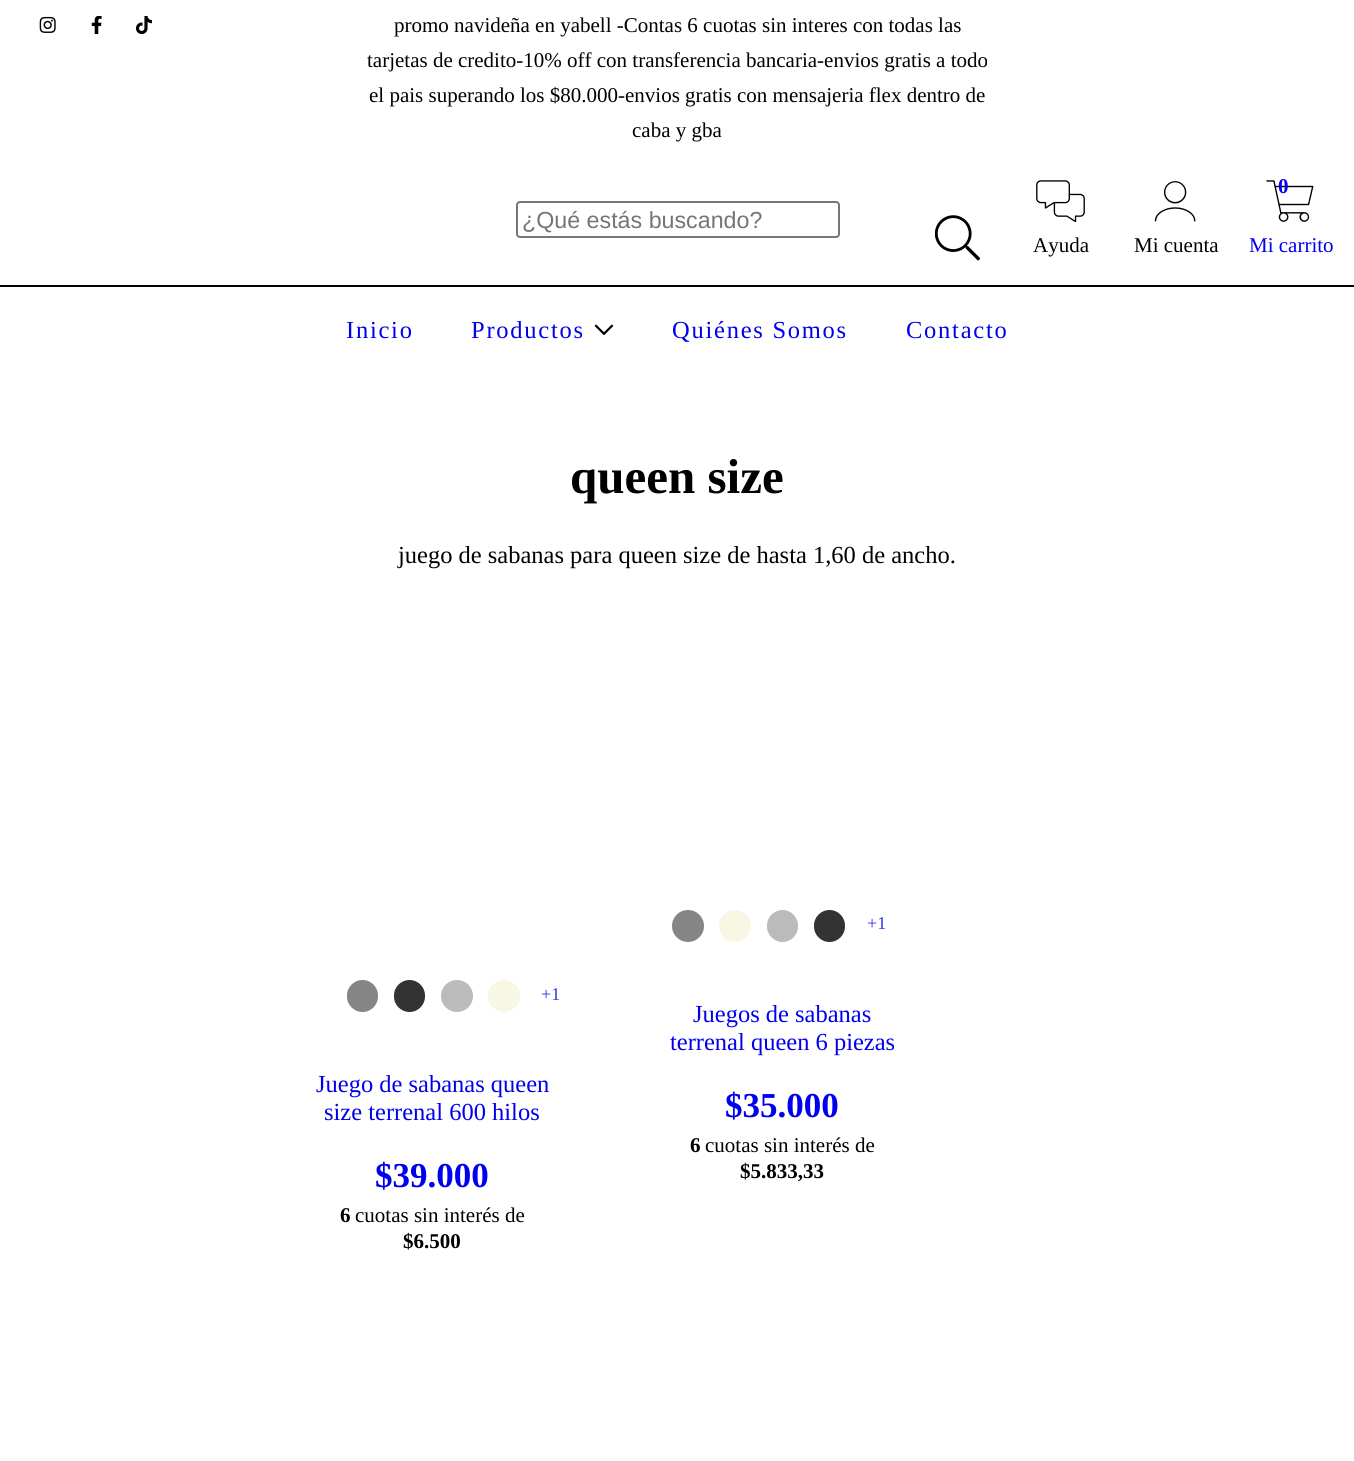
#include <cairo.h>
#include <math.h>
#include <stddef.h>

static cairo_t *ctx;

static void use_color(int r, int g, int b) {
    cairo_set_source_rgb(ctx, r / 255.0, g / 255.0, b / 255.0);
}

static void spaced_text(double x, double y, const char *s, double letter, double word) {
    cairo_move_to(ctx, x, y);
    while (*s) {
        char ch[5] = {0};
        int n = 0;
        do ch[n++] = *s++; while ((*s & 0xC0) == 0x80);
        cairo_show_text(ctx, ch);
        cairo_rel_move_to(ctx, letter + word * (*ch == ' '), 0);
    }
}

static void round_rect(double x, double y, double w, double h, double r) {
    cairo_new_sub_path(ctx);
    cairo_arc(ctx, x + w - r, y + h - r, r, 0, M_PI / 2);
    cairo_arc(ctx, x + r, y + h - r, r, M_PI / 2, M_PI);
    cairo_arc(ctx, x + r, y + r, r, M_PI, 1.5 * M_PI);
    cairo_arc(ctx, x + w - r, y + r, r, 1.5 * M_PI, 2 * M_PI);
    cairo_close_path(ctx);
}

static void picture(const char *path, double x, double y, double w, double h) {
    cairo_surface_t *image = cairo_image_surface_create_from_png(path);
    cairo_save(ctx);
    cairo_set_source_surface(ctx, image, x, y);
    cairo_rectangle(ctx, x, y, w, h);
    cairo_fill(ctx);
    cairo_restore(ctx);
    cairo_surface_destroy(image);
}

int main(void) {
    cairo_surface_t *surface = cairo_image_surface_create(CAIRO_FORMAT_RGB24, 1354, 1461);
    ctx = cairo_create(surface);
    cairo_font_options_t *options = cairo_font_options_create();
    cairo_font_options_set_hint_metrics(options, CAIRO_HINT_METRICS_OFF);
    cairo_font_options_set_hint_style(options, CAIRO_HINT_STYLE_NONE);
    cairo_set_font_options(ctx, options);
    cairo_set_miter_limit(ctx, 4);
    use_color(255, 255, 255);
    cairo_paint(ctx);
    picture("img1.png", 39, 16, 17, 17);
    picture("img2.png", 91, 16, 11, 18);
    picture("img3.png", 135, 16, 17, 18);
    cairo_select_font_face(ctx, "Liberation Serif", CAIRO_FONT_SLANT_NORMAL, CAIRO_FONT_WEIGHT_NORMAL);
    cairo_set_font_size(ctx, 21);
    use_color(0, 0, 0);
    cairo_move_to(ctx, 394, 32);
    cairo_show_text(ctx, "promo navideña en yabell -Contas 6 cuotas sin interes con todas las");
    cairo_move_to(ctx, 367, 67);
    cairo_show_text(ctx, "tarjetas de credito-10% off con transferencia bancaria-envios gratis a todo");
    cairo_move_to(ctx, 369, 102);
    cairo_show_text(ctx, "el pais superando los $80.000-envios gratis con mensajeria flex dentro de");
    cairo_move_to(ctx, 632, 137);
    cairo_show_text(ctx, "caba y gba");
    round_rect(517, 202, 322, 35, 3);
    use_color(118, 118, 118);
    cairo_stroke(ctx);
    cairo_select_font_face(ctx, "Liberation Sans", CAIRO_FONT_SLANT_NORMAL, CAIRO_FONT_WEIGHT_NORMAL);
    cairo_set_font_size(ctx, 23.25);
    use_color(117, 117, 117);
    cairo_move_to(ctx, 522, 228);
    cairo_show_text(ctx, "¿Qué estás buscando?");
    picture("img4.png", 935, 215, 45, 46);
    picture("img5.png", 1036, 180, 49, 42);
    cairo_select_font_face(ctx, "Liberation Serif", CAIRO_FONT_SLANT_NORMAL, CAIRO_FONT_WEIGHT_NORMAL);
    cairo_set_font_size(ctx, 21);
    use_color(0, 0, 0);
    cairo_move_to(ctx, 1033, 252);
    cairo_show_text(ctx, "Ayuda");
    picture("img6.png", 1154, 181, 42, 41);
    cairo_move_to(ctx, 1134, 252);
    cairo_show_text(ctx, "Mi cuenta");
    picture("img7.png", 1266, 180, 48, 42);
    cairo_select_font_face(ctx, "Liberation Serif", CAIRO_FONT_SLANT_NORMAL, CAIRO_FONT_WEIGHT_BOLD);
    use_color(0, 0, 238);
    cairo_move_to(ctx, 1278, 193);
    cairo_show_text(ctx, "0");
    cairo_select_font_face(ctx, "Liberation Serif", CAIRO_FONT_SLANT_NORMAL, CAIRO_FONT_WEIGHT_NORMAL);
    cairo_move_to(ctx, 1249, 252);
    cairo_show_text(ctx, "Mi carrito");
    use_color(0, 0, 0);
    cairo_rectangle(ctx, 0, 285, 1354, 2);
    cairo_fill(ctx);
    cairo_set_font_size(ctx, 24.5);
    use_color(0, 0, 238);
    spaced_text(346, 338, "Inicio", 1.75, 0);
    spaced_text(471, 338, "Productos", 1.75, 0);
    picture("img8.png", 594, 324, 20, 12);
    spaced_text(672, 338, "Quiénes Somos", 1.75, 0);
    spaced_text(906, 338, "Contacto", 1.75, 0);
    cairo_select_font_face(ctx, "Liberation Serif", CAIRO_FONT_SLANT_NORMAL, CAIRO_FONT_WEIGHT_BOLD);
    cairo_set_font_size(ctx, 49);
    use_color(0, 0, 0);
    cairo_move_to(ctx, 570, 493);
    cairo_show_text(ctx, "queen size");
    cairo_select_font_face(ctx, "Liberation Serif", CAIRO_FONT_SLANT_NORMAL, CAIRO_FONT_WEIGHT_NORMAL);
    cairo_set_font_size(ctx, 24.5);
    cairo_move_to(ctx, 398, 563);
    cairo_show_text(ctx, "juego de sabanas para queen size de hasta 1,60 de ancho.");
    use_color(133, 133, 133);
    round_rect(347, 980, 31, 32, 15.5);
    cairo_fill(ctx);
    use_color(51, 51, 51);
    round_rect(394, 980, 31, 32, 15.5);
    cairo_fill(ctx);
    use_color(187, 187, 187);
    cairo_arc(ctx, 457, 996, 16, 0, 2 * M_PI);
    cairo_fill(ctx);
    use_color(247, 247, 227);
    cairo_arc(ctx, 504, 996, 16, 0, 2 * M_PI);
    cairo_fill(ctx);
    cairo_set_font_size(ctx, 18);
    use_color(51, 51, 241);
    cairo_move_to(ctx, 541, 1000);
    cairo_show_text(ctx, "+1");
    cairo_set_font_size(ctx, 24.5);
    use_color(0, 0, 238);
    cairo_move_to(ctx, 316, 1092);
    cairo_show_text(ctx, "Juego de sabanas queen");
    cairo_move_to(ctx, 324, 1120);
    cairo_show_text(ctx, "size terrenal 600 hilos");
    cairo_select_font_face(ctx, "Liberation Serif", CAIRO_FONT_SLANT_NORMAL, CAIRO_FONT_WEIGHT_BOLD);
    cairo_set_font_size(ctx, 35);
    cairo_move_to(ctx, 375, 1187);
    cairo_show_text(ctx, "$39.000");
    cairo_set_font_size(ctx, 21);
    use_color(0, 0, 0);
    cairo_move_to(ctx, 340, 1222);
    cairo_show_text(ctx, "6");
    cairo_select_font_face(ctx, "Liberation Serif", CAIRO_FONT_SLANT_NORMAL, CAIRO_FONT_WEIGHT_NORMAL);
    cairo_move_to(ctx, 355, 1222);
    cairo_show_text(ctx, "cuotas sin interés de");
    cairo_select_font_face(ctx, "Liberation Serif", CAIRO_FONT_SLANT_NORMAL, CAIRO_FONT_WEIGHT_BOLD);
    cairo_move_to(ctx, 403, 1248);
    cairo_show_text(ctx, "$6.500");
    use_color(133, 133, 133);
    cairo_new_path(ctx);
    cairo_arc(ctx, 688, 926, 16, 0, 2 * M_PI);
    cairo_fill(ctx);
    use_color(247, 247, 227);
    cairo_arc(ctx, 735, 926, 16, 0, 2 * M_PI);
    cairo_fill(ctx);
    use_color(187, 187, 187);
    round_rect(767, 910, 31, 32, 15.5);
    cairo_fill(ctx);
    use_color(51, 51, 51);
    round_rect(814, 910, 31, 32, 15.5);
    cairo_fill(ctx);
    cairo_select_font_face(ctx, "Liberation Serif", CAIRO_FONT_SLANT_NORMAL, CAIRO_FONT_WEIGHT_NORMAL);
    cairo_set_font_size(ctx, 18);
    use_color(51, 51, 241);
    cairo_move_to(ctx, 867, 929);
    cairo_show_text(ctx, "+1");
    cairo_set_font_size(ctx, 24.5);
    use_color(0, 0, 238);
    cairo_move_to(ctx, 693, 1022);
    cairo_show_text(ctx, "Juegos de sabanas");
    cairo_move_to(ctx, 670, 1050);
    cairo_show_text(ctx, "terrenal queen 6 piezas");
    cairo_select_font_face(ctx, "Liberation Serif", CAIRO_FONT_SLANT_NORMAL, CAIRO_FONT_WEIGHT_BOLD);
    cairo_set_font_size(ctx, 35);
    cairo_move_to(ctx, 725, 1117);
    cairo_show_text(ctx, "$35.000");
    cairo_set_font_size(ctx, 21);
    use_color(0, 0, 0);
    cairo_move_to(ctx, 690, 1152);
    cairo_show_text(ctx, "6");
    cairo_select_font_face(ctx, "Liberation Serif", CAIRO_FONT_SLANT_NORMAL, CAIRO_FONT_WEIGHT_NORMAL);
    cairo_move_to(ctx, 705, 1152);
    cairo_show_text(ctx, "cuotas sin interés de");
    cairo_select_font_face(ctx, "Liberation Serif", CAIRO_FONT_SLANT_NORMAL, CAIRO_FONT_WEIGHT_BOLD);
    cairo_move_to(ctx, 740, 1178);
    cairo_show_text(ctx, "$5.833,33");
    cairo_surface_write_to_png(surface, "result.png");
    cairo_font_options_destroy(options);
    cairo_destroy(ctx);
    cairo_surface_destroy(surface);
    return 0;
}
